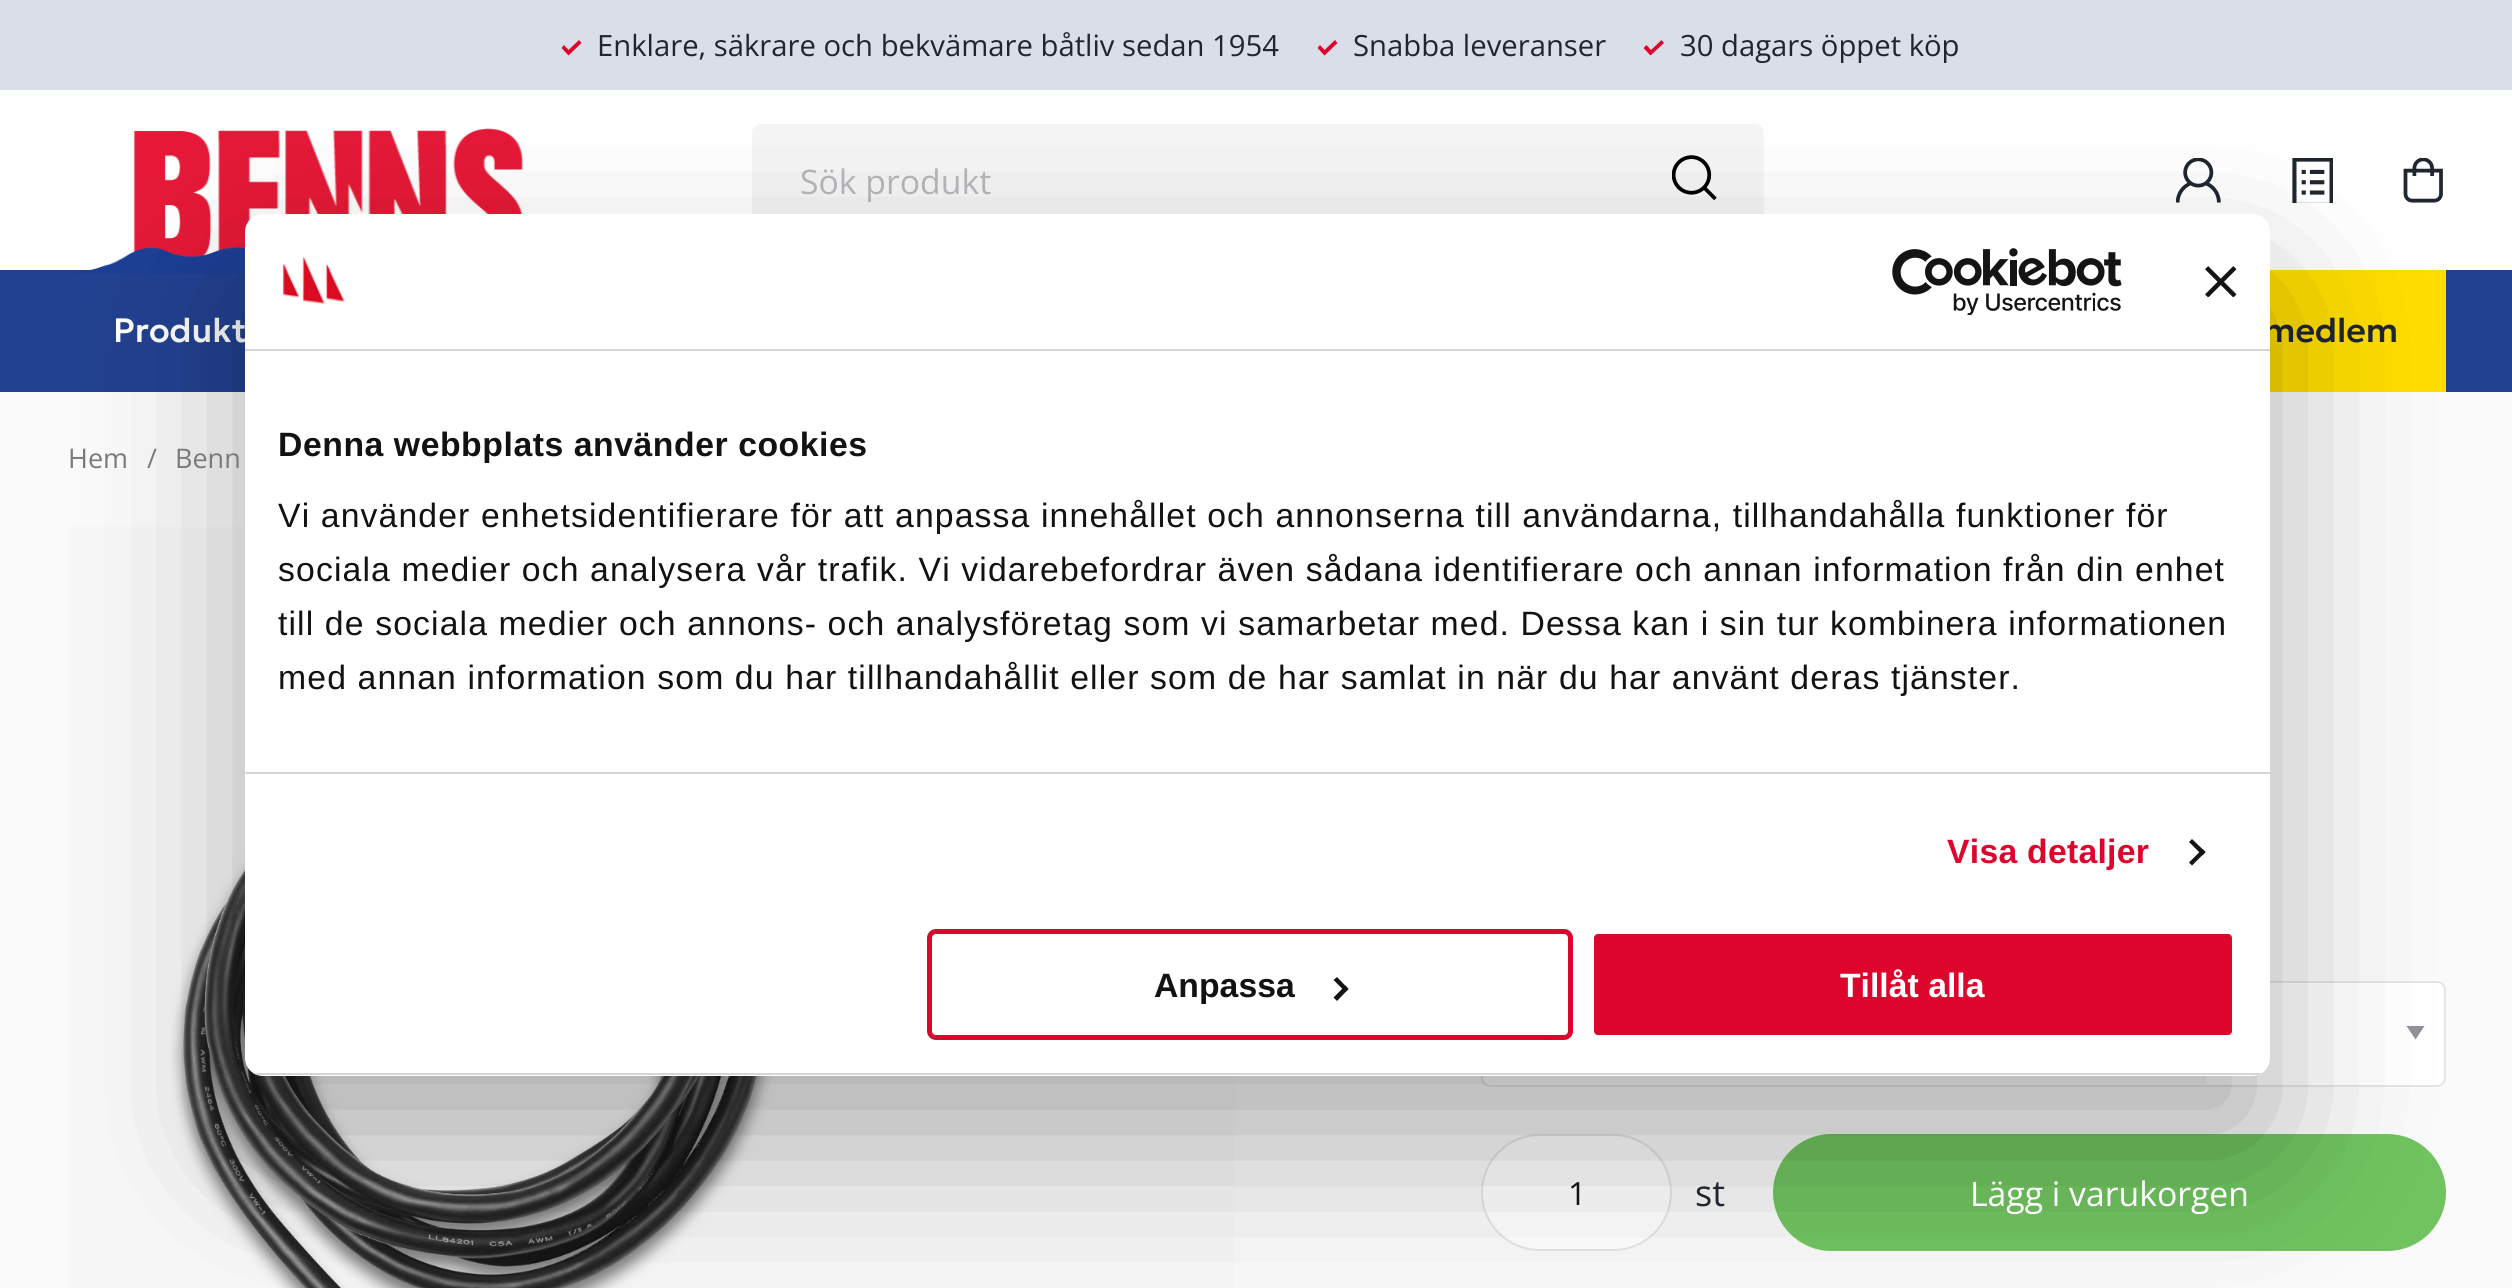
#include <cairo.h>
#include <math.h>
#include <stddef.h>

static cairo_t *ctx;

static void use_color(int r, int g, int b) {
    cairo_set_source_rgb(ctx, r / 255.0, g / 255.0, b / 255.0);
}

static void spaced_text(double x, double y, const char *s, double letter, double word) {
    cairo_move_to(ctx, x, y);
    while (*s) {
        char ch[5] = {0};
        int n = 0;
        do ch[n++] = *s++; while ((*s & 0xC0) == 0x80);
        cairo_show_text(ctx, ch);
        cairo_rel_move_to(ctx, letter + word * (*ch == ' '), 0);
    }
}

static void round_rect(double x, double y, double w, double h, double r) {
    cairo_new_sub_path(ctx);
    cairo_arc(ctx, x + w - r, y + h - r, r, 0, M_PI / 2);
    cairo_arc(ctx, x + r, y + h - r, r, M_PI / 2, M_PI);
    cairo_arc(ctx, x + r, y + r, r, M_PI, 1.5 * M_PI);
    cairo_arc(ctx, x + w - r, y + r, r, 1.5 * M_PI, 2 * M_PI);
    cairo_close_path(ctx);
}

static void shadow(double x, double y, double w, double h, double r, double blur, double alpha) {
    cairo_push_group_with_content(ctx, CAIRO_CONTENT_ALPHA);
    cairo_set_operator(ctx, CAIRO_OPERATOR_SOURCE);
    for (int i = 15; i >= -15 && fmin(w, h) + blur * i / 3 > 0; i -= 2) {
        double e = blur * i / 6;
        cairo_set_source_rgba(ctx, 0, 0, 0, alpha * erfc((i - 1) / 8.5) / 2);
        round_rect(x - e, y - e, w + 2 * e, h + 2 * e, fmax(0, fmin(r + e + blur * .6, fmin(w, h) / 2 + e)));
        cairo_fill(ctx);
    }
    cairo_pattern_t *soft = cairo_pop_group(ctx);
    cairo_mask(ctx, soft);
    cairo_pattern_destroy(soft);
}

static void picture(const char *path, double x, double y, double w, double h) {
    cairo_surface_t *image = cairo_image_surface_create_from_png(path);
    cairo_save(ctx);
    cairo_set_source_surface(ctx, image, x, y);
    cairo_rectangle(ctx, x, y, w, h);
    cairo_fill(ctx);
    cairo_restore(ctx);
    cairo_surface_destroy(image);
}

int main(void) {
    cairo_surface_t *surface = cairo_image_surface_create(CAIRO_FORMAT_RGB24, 2512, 1288);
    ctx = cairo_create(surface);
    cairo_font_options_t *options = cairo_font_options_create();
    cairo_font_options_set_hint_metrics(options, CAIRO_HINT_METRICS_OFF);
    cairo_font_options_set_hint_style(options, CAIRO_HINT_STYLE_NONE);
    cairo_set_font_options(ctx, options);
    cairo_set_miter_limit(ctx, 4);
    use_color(250, 250, 250);
    cairo_paint(ctx);
    use_color(218, 222, 232);
    cairo_rectangle(ctx, 0, 0, 2512, 90);
    cairo_fill(ctx);
    use_color(221, 5, 43);
    cairo_new_path(ctx);
    cairo_move_to(ctx, 579, 40);
    cairo_line_to(ctx, 568.5, 50);
    cairo_line_to(ctx, 564, 45);
    cairo_line_to(ctx, 561.5, 48);
    cairo_line_to(ctx, 568.5, 55.5);
    cairo_line_to(ctx, 581.5, 43);
    cairo_close_path(ctx);
    cairo_fill(ctx);
    cairo_select_font_face(ctx, "Open Sans", CAIRO_FONT_SLANT_NORMAL, CAIRO_FONT_WEIGHT_NORMAL);
    cairo_set_font_size(ctx, 29.25);
    use_color(31, 38, 47);
    cairo_move_to(ctx, 597, 56);
    cairo_show_text(ctx, "Enklare, säkrare och bekvämare båtliv sedan 1954");
    use_color(221, 5, 43);
    cairo_new_path(ctx);
    cairo_move_to(ctx, 1335, 40);
    cairo_line_to(ctx, 1324.5, 50);
    cairo_line_to(ctx, 1320, 45);
    cairo_line_to(ctx, 1317.5, 48);
    cairo_line_to(ctx, 1324.5, 55.5);
    cairo_line_to(ctx, 1337.5, 43);
    cairo_close_path(ctx);
    cairo_fill(ctx);
    use_color(31, 38, 47);
    cairo_move_to(ctx, 1353, 56);
    cairo_show_text(ctx, "Snabba leveranser");
    use_color(221, 5, 43);
    cairo_new_path(ctx);
    cairo_move_to(ctx, 1661.5, 40);
    cairo_line_to(ctx, 1651, 50);
    cairo_line_to(ctx, 1646.5, 45);
    cairo_line_to(ctx, 1643.5, 48);
    cairo_line_to(ctx, 1650.5, 55.5);
    cairo_line_to(ctx, 1664, 43);
    cairo_close_path(ctx);
    cairo_fill(ctx);
    use_color(31, 38, 47);
    cairo_move_to(ctx, 1680, 56);
    cairo_show_text(ctx, "30 dagars öppet köp");
    use_color(255, 255, 255);
    cairo_rectangle(ctx, 0, 90, 2512, 180);
    cairo_fill(ctx);
    use_color(34, 65, 144);
    cairo_rectangle(ctx, 0, 270, 2512, 122);
    cairo_fill(ctx);
    picture("img1.png", 73, 128, 450, 146);
    use_color(245, 245, 245);
    round_rect(752, 124, 1012, 112, 9);
    cairo_fill(ctx);
    cairo_set_font_size(ctx, 33.75);
    use_color(181, 183, 186);
    cairo_move_to(ctx, 800, 194);
    cairo_show_text(ctx, "Sök produkt");
    picture("img2.png", 1672, 155, 45, 45);
    picture("img3.png", 2176, 158, 45, 45);
    picture("img4.png", 2292, 158, 41, 45);
    picture("img5.png", 2403, 158, 40, 45);
    cairo_select_font_face(ctx, "Geologica Medium", CAIRO_FONT_SLANT_NORMAL, CAIRO_FONT_WEIGHT_NORMAL);
    use_color(255, 255, 255);
    cairo_move_to(ctx, 113, 342);
    cairo_show_text(ctx, "Produkt");
    use_color(255, 221, 0);
    cairo_rectangle(ctx, 2270, 270, 176, 122);
    cairo_fill(ctx);
    use_color(31, 38, 47);
    cairo_move_to(ctx, 2263, 342);
    cairo_show_text(ctx, "medlem");
    use_color(247, 247, 247);
    cairo_rectangle(ctx, 68, 527, 177, 81);
    cairo_fill(ctx);
    cairo_rectangle(ctx, 68, 608, 1167, 680);
    cairo_fill(ctx);
    picture("img9.png", 170, 744, 962, 544);
    use_color(255, 255, 255);
    round_rect(1481, 981, 965, 106, 9);
    cairo_fill(ctx);
    use_color(143, 147, 151);
    cairo_new_path(ctx);
    cairo_move_to(ctx, 2406.5, 1026);
    cairo_line_to(ctx, 2424.5, 1026);
    cairo_line_to(ctx, 2415.5, 1039.5);
    cairo_close_path(ctx);
    cairo_fill(ctx);
    round_rect(1482, 982, 963, 104, 8);
    use_color(227, 229, 232);
    cairo_stroke(ctx);
    use_color(255, 255, 255);
    round_rect(1482, 1135, 189, 115, 57.5);
    cairo_fill_preserve(ctx);
    use_color(227, 229, 232);
    cairo_stroke(ctx);
    use_color(112, 195, 95);
    round_rect(1773, 1134, 673, 117, 58.5);
    cairo_fill(ctx);
    use_color(0, 0, 0);
    shadow(245, 286, 2025, 862, 18, 76.5, 0.3);
    use_color(255, 255, 255);
    round_rect(245, 214, 2025, 862, 18);
    cairo_fill(ctx);
    use_color(214, 214, 214);
    cairo_rectangle(ctx, 245, 349, 2025, 2);
    cairo_fill(ctx);
    picture("img6.png", 282, 257, 63, 47);
    picture("img7.png", 1892, 248, 230, 67);
    picture("img8.png", 2205, 266, 32, 31);
    cairo_rectangle(ctx, 245, 772, 2025, 2);
    cairo_fill(ctx);
    cairo_select_font_face(ctx, "Liberation Sans", CAIRO_FONT_SLANT_NORMAL, CAIRO_FONT_WEIGHT_BOLD);
    use_color(18, 18, 18);
    spaced_text(278, 456, "Denna webbplats använder cookies", 0.55, 0);
    cairo_select_font_face(ctx, "Liberation Sans", CAIRO_FONT_SLANT_NORMAL, CAIRO_FONT_WEIGHT_NORMAL);
    spaced_text(278, 527, "Vi använder enhetsidentifierare för att anpassa innehållet och annonserna till användarna, tillhandahålla funktioner för", 1.12, 0);
    spaced_text(278, 581, "sociala medier och analysera vår trafik. Vi vidarebefordrar även sådana identifierare och annan information från din enhet", 1.12, 0);
    spaced_text(278, 635, "till de sociala medier och annons- och analysföretag som vi samarbetar med. Dessa kan i sin tur kombinera informationen", 1.12, 0);
    spaced_text(278, 689, "med annan information som du har tillhandahållit eller som de har samlat in när du har använt deras tjänster.", 1.12, 0);
    cairo_select_font_face(ctx, "Liberation Sans", CAIRO_FONT_SLANT_NORMAL, CAIRO_FONT_WEIGHT_BOLD);
    use_color(221, 5, 43);
    spaced_text(1947, 863, "Visa detaljer", 0.25, 0);
    use_color(20, 20, 20);
    cairo_new_path(ctx);
    cairo_move_to(ctx, 2192, 839);
    cairo_line_to(ctx, 2205.5, 852);
    cairo_line_to(ctx, 2202.5, 855.5);
    cairo_line_to(ctx, 2189, 842);
    cairo_close_path(ctx);
    cairo_fill(ctx);
    cairo_new_path(ctx);
    cairo_move_to(ctx, 2202.5, 849);
    cairo_line_to(ctx, 2205.5, 852);
    cairo_line_to(ctx, 2192, 865.5);
    cairo_line_to(ctx, 2189, 862.5);
    cairo_close_path(ctx);
    cairo_fill(ctx);
    cairo_save(ctx);
    round_rect(245, 214, 2025, 862, 18);
    cairo_clip(ctx);
    use_color(214, 214, 214);
    cairo_rectangle(ctx, 245, 1073, 2025, 2);
    cairo_fill(ctx);
    cairo_restore(ctx);
    round_rect(929.5, 931.5, 641, 106, 6.5);
    use_color(221, 5, 43);
    cairo_set_line_width(ctx, 5);
    cairo_stroke(ctx);
    use_color(18, 18, 18);
    cairo_move_to(ctx, 1154, 997);
    cairo_show_text(ctx, "Anpassa");
    use_color(20, 20, 20);
    cairo_new_path(ctx);
    cairo_move_to(ctx, 1337, 977);
    cairo_line_to(ctx, 1348.5, 989);
    cairo_line_to(ctx, 1345.5, 992);
    cairo_line_to(ctx, 1333.5, 980);
    cairo_close_path(ctx);
    cairo_fill(ctx);
    cairo_new_path(ctx);
    cairo_move_to(ctx, 1345.5, 985.5);
    cairo_line_to(ctx, 1348.5, 989);
    cairo_line_to(ctx, 1337, 1001);
    cairo_line_to(ctx, 1333.5, 997.5);
    cairo_close_path(ctx);
    cairo_fill(ctx);
    use_color(221, 5, 43);
    round_rect(1591.5, 931.5, 643, 106, 6.5);
    cairo_fill_preserve(ctx);
    use_color(255, 255, 255);
    cairo_stroke(ctx);
    cairo_move_to(ctx, 1840, 997);
    cairo_show_text(ctx, "Tillåt alla");
    cairo_select_font_face(ctx, "Open Sans", CAIRO_FONT_SLANT_NORMAL, CAIRO_FONT_WEIGHT_NORMAL);
    cairo_set_font_size(ctx, 27);
    use_color(122, 122, 122);
    cairo_move_to(ctx, 68, 468);
    cairo_show_text(ctx, "Hem");
    cairo_move_to(ctx, 147, 468);
    cairo_show_text(ctx, "/");
    cairo_move_to(ctx, 175, 468);
    cairo_show_text(ctx, "Benn");
    cairo_set_font_size(ctx, 32);
    use_color(18, 18, 18);
    cairo_move_to(ctx, 1568, 1205);
    cairo_show_text(ctx, "1");
    cairo_set_font_size(ctx, 36);
    use_color(31, 38, 47);
    cairo_move_to(ctx, 1695, 1206);
    cairo_show_text(ctx, "st");
    cairo_set_font_size(ctx, 33.75);
    use_color(255, 255, 255);
    cairo_move_to(ctx, 1970, 1206);
    cairo_show_text(ctx, "Lägg i varukorgen");
    cairo_surface_write_to_png(surface, "result.png");
    cairo_font_options_destroy(options);
    cairo_destroy(ctx);
    cairo_surface_destroy(surface);
    return 0;
}
